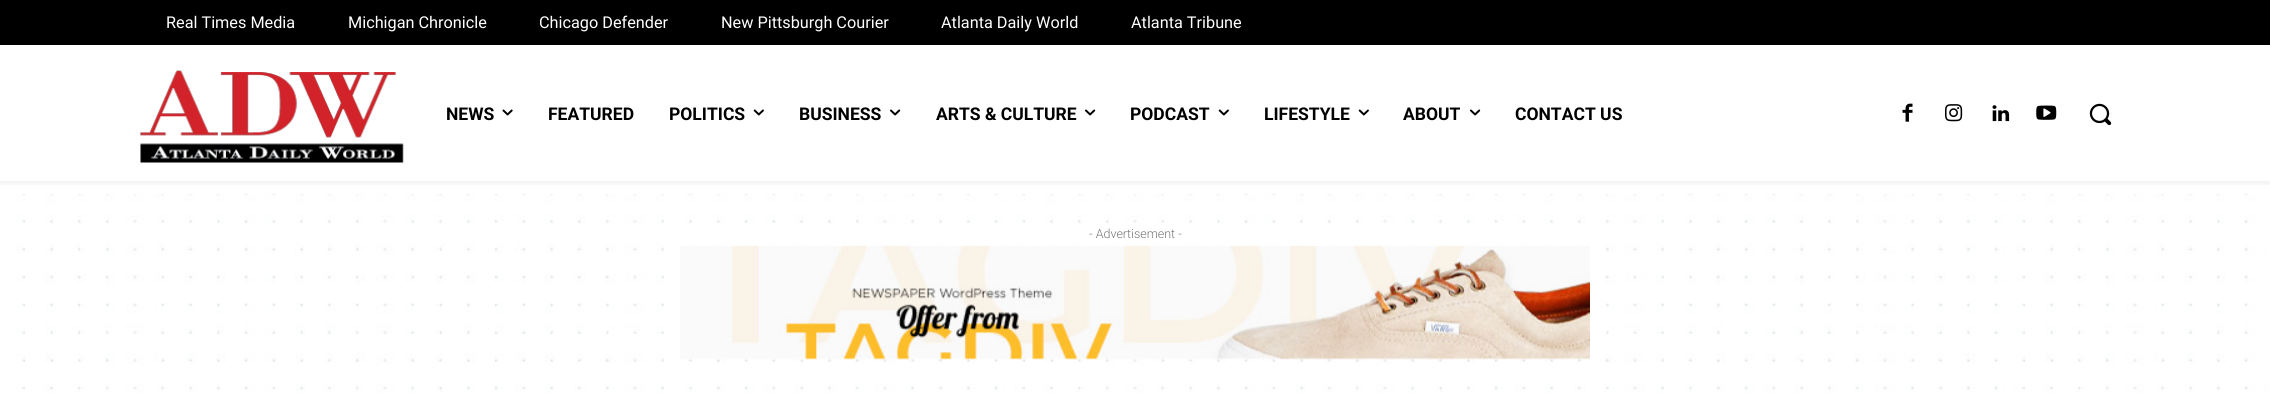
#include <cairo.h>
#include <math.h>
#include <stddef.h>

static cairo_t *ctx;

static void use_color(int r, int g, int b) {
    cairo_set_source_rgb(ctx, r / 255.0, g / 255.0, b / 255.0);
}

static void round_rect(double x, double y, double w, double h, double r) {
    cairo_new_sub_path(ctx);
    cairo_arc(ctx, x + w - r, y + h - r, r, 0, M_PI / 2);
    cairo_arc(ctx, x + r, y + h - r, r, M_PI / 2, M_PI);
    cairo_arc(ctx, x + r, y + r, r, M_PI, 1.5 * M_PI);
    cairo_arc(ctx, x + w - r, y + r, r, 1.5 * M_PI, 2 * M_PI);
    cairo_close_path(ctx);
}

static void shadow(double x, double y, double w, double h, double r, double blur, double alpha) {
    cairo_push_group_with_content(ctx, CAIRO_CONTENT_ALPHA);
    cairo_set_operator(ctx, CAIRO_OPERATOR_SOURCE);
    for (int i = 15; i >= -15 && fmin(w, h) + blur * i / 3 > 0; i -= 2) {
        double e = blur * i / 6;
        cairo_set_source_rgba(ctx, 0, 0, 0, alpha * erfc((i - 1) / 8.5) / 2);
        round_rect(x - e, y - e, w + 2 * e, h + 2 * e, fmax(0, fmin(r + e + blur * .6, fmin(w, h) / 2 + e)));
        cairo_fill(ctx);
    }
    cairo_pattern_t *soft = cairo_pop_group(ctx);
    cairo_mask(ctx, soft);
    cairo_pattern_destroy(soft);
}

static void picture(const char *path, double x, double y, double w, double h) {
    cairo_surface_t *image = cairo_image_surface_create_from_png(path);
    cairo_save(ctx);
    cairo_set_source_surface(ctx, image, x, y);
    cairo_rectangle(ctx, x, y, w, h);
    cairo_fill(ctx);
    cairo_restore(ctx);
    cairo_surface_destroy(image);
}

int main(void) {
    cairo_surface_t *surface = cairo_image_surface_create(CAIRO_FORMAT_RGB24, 2270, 413);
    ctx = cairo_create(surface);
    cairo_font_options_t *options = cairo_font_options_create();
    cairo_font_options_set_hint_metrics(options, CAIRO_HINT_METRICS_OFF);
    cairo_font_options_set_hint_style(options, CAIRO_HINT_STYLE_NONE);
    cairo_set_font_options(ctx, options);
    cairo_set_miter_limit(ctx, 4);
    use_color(255, 255, 255);
    cairo_paint(ctx);
    use_color(0, 0, 0);
    cairo_rectangle(ctx, 0, 0, 2270, 45);
    cairo_fill(ctx);
    cairo_select_font_face(ctx, "Roboto", CAIRO_FONT_SLANT_NORMAL, CAIRO_FONT_WEIGHT_NORMAL);
    cairo_set_font_size(ctx, 16.25);
    use_color(255, 255, 255);
    cairo_move_to(ctx, 166, 28);
    cairo_show_text(ctx, "Real Times Media");
    cairo_move_to(ctx, 348, 28);
    cairo_show_text(ctx, "Michigan Chronicle");
    cairo_move_to(ctx, 539, 28);
    cairo_show_text(ctx, "Chicago Defender");
    cairo_move_to(ctx, 721, 28);
    cairo_show_text(ctx, "New Pittsburgh Courier");
    cairo_move_to(ctx, 941, 28);
    cairo_show_text(ctx, "Atlanta Daily World");
    cairo_move_to(ctx, 1131, 28);
    cairo_show_text(ctx, "Atlanta Tribune");
    picture("img1.png", 140, 70, 264, 93);
    picture("img5.png", 1902, 103, 11, 19);
    picture("img6.png", 1945, 104, 18, 18);
    picture("img7.png", 1992, 105, 18, 17);
    picture("img8.png", 2036, 105, 21, 15);
    cairo_save(ctx);
    cairo_rectangle(ctx, 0, 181, 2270, 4);
    cairo_clip(ctx);
    use_color(0, 0, 0);
    shadow(0, 48, 2270, 136, 0, 2.5, 0.06);
    cairo_restore(ctx);
    cairo_select_font_face(ctx, "Roboto", CAIRO_FONT_SLANT_NORMAL, CAIRO_FONT_WEIGHT_BOLD);
    cairo_set_font_size(ctx, 17.5);
    use_color(0, 0, 0);
    cairo_move_to(ctx, 446, 120);
    cairo_show_text(ctx, "NEWS");
    picture("img2.png", 502, 109, 11, 7);
    cairo_move_to(ctx, 548, 120);
    cairo_show_text(ctx, "FEATURED");
    cairo_move_to(ctx, 669, 120);
    cairo_show_text(ctx, "POLITICS");
    picture("img3.png", 753, 109, 11, 7);
    cairo_move_to(ctx, 799, 120);
    cairo_show_text(ctx, "BUSINESS");
    picture("img4.png", 890, 109, 11, 7);
    cairo_move_to(ctx, 936, 120);
    cairo_show_text(ctx, "ARTS & CULTURE");
    picture("img4.png", 1085, 109, 11, 7);
    cairo_move_to(ctx, 1130, 120);
    cairo_show_text(ctx, "PODCAST");
    picture("img3.png", 1218, 109, 11, 7);
    cairo_move_to(ctx, 1264, 120);
    cairo_show_text(ctx, "LIFESTYLE");
    picture("img3.png", 1358, 109, 11, 7);
    cairo_move_to(ctx, 1403, 120);
    cairo_show_text(ctx, "ABOUT");
    picture("img4.png", 1470, 109, 11, 7);
    cairo_move_to(ctx, 1515, 120);
    cairo_show_text(ctx, "CONTACT US");
    picture("img9.png", 2089, 103, 23, 23);
    picture("img10.png", 15, 194, 2253, 200);
    cairo_select_font_face(ctx, "Roboto Light", CAIRO_FONT_SLANT_NORMAL, CAIRO_FONT_WEIGHT_NORMAL);
    cairo_set_font_size(ctx, 12.5);
    use_color(118, 118, 118);
    cairo_move_to(ctx, 1089, 238);
    cairo_show_text(ctx, "- Advertisement -");
    picture("img11.png", 680, 246, 910, 114);
    cairo_surface_write_to_png(surface, "result.png");
    cairo_font_options_destroy(options);
    cairo_destroy(ctx);
    cairo_surface_destroy(surface);
    return 0;
}
